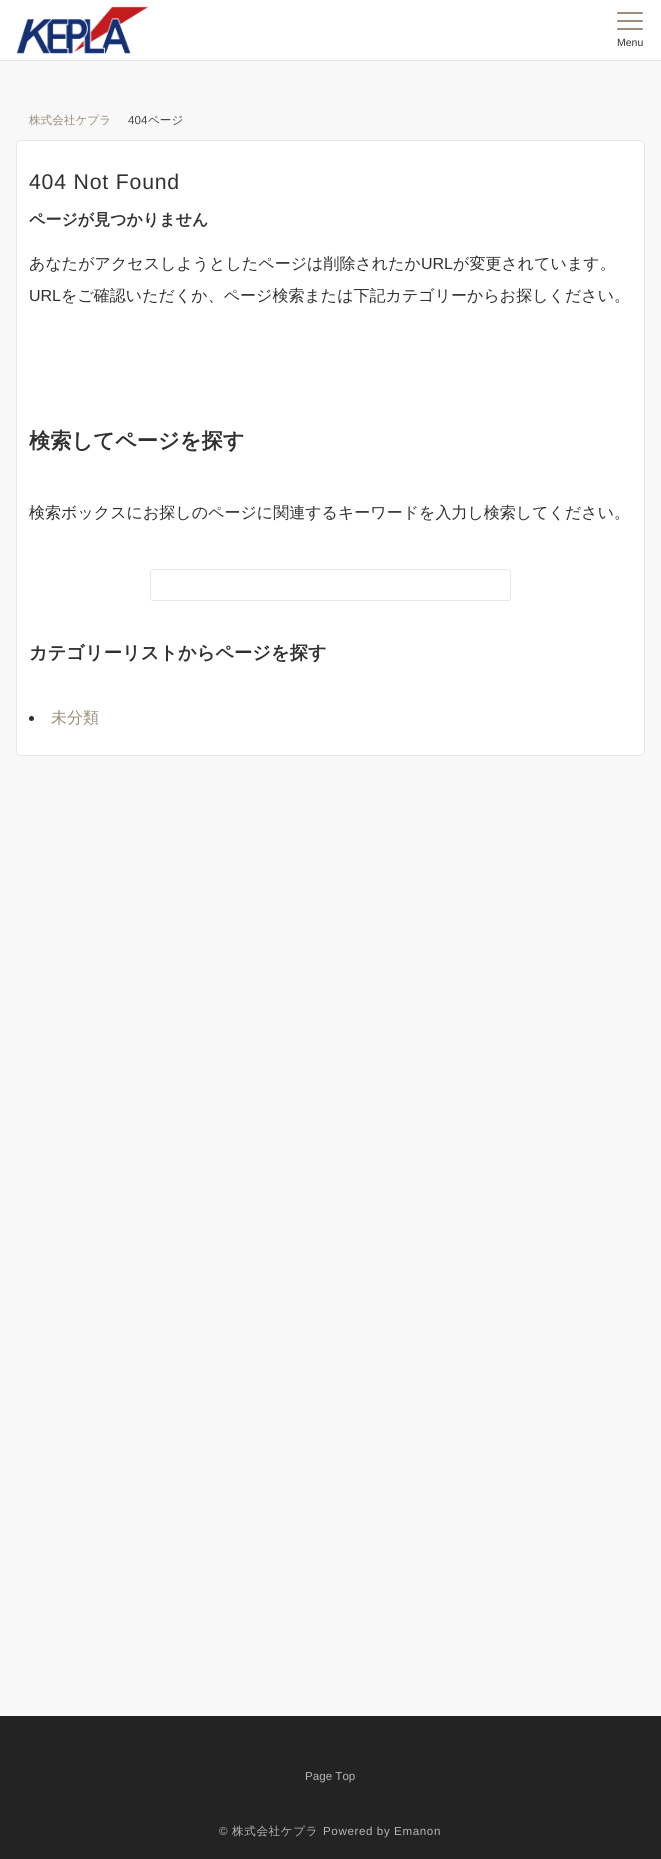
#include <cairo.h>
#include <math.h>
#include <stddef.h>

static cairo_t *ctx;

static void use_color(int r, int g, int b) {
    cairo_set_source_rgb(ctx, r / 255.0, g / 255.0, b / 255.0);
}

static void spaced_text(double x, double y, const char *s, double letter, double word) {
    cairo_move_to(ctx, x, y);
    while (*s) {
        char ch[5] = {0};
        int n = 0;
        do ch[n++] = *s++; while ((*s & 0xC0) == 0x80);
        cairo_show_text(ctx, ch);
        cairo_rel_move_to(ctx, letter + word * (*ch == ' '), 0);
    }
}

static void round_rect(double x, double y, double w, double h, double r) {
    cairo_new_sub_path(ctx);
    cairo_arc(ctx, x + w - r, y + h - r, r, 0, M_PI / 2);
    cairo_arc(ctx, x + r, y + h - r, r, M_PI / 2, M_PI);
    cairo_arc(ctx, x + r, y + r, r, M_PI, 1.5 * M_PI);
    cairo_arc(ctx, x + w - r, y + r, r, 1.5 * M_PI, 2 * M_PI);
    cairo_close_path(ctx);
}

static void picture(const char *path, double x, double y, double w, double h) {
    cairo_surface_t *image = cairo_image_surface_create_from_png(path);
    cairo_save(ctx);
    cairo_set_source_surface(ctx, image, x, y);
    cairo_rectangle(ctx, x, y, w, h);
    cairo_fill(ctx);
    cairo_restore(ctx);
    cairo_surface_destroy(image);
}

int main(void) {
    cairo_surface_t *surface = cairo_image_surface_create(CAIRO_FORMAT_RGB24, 661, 1859);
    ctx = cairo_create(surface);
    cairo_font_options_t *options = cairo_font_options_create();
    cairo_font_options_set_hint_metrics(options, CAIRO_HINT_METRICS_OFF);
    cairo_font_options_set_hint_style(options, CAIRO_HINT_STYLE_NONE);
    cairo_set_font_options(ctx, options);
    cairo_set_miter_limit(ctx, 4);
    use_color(248, 248, 248);
    cairo_paint(ctx);
    use_color(255, 255, 255);
    cairo_rectangle(ctx, 0, 0, 661, 60);
    cairo_fill(ctx);
    use_color(230, 230, 230);
    cairo_rectangle(ctx, 0, 60, 661, 1);
    cairo_fill(ctx);
    picture("img1.png", 17, 6, 132, 48);
    use_color(155, 141, 119);
    round_rect(617, 12, 26, 2, 1);
    cairo_fill(ctx);
    round_rect(617, 20, 26, 2, 1);
    cairo_fill(ctx);
    round_rect(617, 28, 26, 2, 1);
    cairo_fill(ctx);
    cairo_select_font_face(ctx, "Liberation Sans", CAIRO_FONT_SLANT_NORMAL, CAIRO_FONT_WEIGHT_NORMAL);
    cairo_set_font_size(ctx, 10.5);
    use_color(48, 48, 48);
    cairo_move_to(ctx, 617, 46);
    cairo_show_text(ctx, "Menu");
    cairo_select_font_face(ctx, "WenQuanYi Zen Hei Medium", CAIRO_FONT_SLANT_NORMAL, CAIRO_FONT_WEIGHT_NORMAL);
    cairo_set_font_size(ctx, 11.6);
    use_color(155, 141, 119);
    cairo_move_to(ctx, 29, 124);
    cairo_show_text(ctx, "株式会社ケプラ");
    cairo_select_font_face(ctx, "Liberation Sans", CAIRO_FONT_SLANT_NORMAL, CAIRO_FONT_WEIGHT_NORMAL);
    use_color(72, 72, 72);
    cairo_move_to(ctx, 128, 124);
    cairo_show_text(ctx, "404");
    cairo_select_font_face(ctx, "WenQuanYi Zen Hei Medium", CAIRO_FONT_SLANT_NORMAL, CAIRO_FONT_WEIGHT_NORMAL);
    cairo_move_to(ctx, 148, 124);
    cairo_show_text(ctx, "ページ");
    use_color(255, 255, 255);
    round_rect(16.5, 140.5, 628, 615, 3.5);
    cairo_fill_preserve(ctx);
    use_color(229, 231, 232);
    cairo_set_line_width(ctx, 1);
    cairo_stroke(ctx);
    cairo_select_font_face(ctx, "Liberation Sans", CAIRO_FONT_SLANT_NORMAL, CAIRO_FONT_WEIGHT_NORMAL);
    cairo_set_font_size(ctx, 21.25);
    use_color(48, 48, 48);
    spaced_text(29, 189, "404 Not Found", 0.8, 0);
    cairo_select_font_face(ctx, "WenQuanYi Zen Hei", CAIRO_FONT_SLANT_NORMAL, CAIRO_FONT_WEIGHT_BOLD);
    cairo_set_font_size(ctx, 16);
    cairo_move_to(ctx, 29, 225);
    cairo_show_text(ctx, "ページが見つかりません");
    cairo_select_font_face(ctx, "WenQuanYi Zen Hei Medium", CAIRO_FONT_SLANT_NORMAL, CAIRO_FONT_WEIGHT_NORMAL);
    cairo_move_to(ctx, 29, 269);
    cairo_show_text(ctx, "あなたがアクセスしようとしたページは削除されたか");
    cairo_select_font_face(ctx, "Liberation Sans", CAIRO_FONT_SLANT_NORMAL, CAIRO_FONT_WEIGHT_NORMAL);
    cairo_move_to(ctx, 421, 269);
    cairo_show_text(ctx, "URL");
    cairo_select_font_face(ctx, "WenQuanYi Zen Hei Medium", CAIRO_FONT_SLANT_NORMAL, CAIRO_FONT_WEIGHT_NORMAL);
    cairo_move_to(ctx, 453, 269);
    cairo_show_text(ctx, "が変更されています。");
    cairo_select_font_face(ctx, "Liberation Sans", CAIRO_FONT_SLANT_NORMAL, CAIRO_FONT_WEIGHT_NORMAL);
    cairo_move_to(ctx, 29, 301);
    cairo_show_text(ctx, "URL");
    cairo_select_font_face(ctx, "WenQuanYi Zen Hei Medium", CAIRO_FONT_SLANT_NORMAL, CAIRO_FONT_WEIGHT_NORMAL);
    cairo_move_to(ctx, 61, 301);
    cairo_show_text(ctx, "をご確認いただくか、ページ検索または下記カテゴリーからお探しください。");
    cairo_select_font_face(ctx, "WenQuanYi Zen Hei", CAIRO_FONT_SLANT_NORMAL, CAIRO_FONT_WEIGHT_BOLD);
    cairo_set_font_size(ctx, 21.25);
    cairo_move_to(ctx, 29, 448);
    cairo_show_text(ctx, "検索してページを探す");
    cairo_select_font_face(ctx, "WenQuanYi Zen Hei Medium", CAIRO_FONT_SLANT_NORMAL, CAIRO_FONT_WEIGHT_NORMAL);
    cairo_set_font_size(ctx, 16);
    cairo_move_to(ctx, 29, 518);
    cairo_show_text(ctx, "検索ボックスにお探しのページに関連するキーワードを入力し検索してください。");
    round_rect(150.5, 569.5, 360, 31, 2.5);
    use_color(229, 231, 232);
    cairo_stroke(ctx);
    cairo_select_font_face(ctx, "WenQuanYi Zen Hei", CAIRO_FONT_SLANT_NORMAL, CAIRO_FONT_WEIGHT_BOLD);
    cairo_set_font_size(ctx, 18.25);
    use_color(48, 48, 48);
    cairo_move_to(ctx, 29, 659);
    cairo_show_text(ctx, "カテゴリーリストからページを探す");
    cairo_new_path(ctx);
    cairo_arc(ctx, 31.5, 718.5, 2.5, 0, 2 * M_PI);
    cairo_fill(ctx);
    cairo_select_font_face(ctx, "WenQuanYi Zen Hei Medium", CAIRO_FONT_SLANT_NORMAL, CAIRO_FONT_WEIGHT_NORMAL);
    cairo_set_font_size(ctx, 16);
    use_color(155, 141, 119);
    cairo_move_to(ctx, 51, 723);
    cairo_show_text(ctx, "未分類");
    use_color(35, 35, 35);
    cairo_rectangle(ctx, 0, 1716, 661, 143);
    cairo_fill(ctx);
    cairo_select_font_face(ctx, "Liberation Sans", CAIRO_FONT_SLANT_NORMAL, CAIRO_FONT_WEIGHT_NORMAL);
    cairo_set_font_size(ctx, 11.6);
    use_color(181, 181, 181);
    cairo_move_to(ctx, 305, 1780);
    cairo_show_text(ctx, "Page Top");
    spaced_text(219, 1835, "©", 0.6, 0);
    cairo_select_font_face(ctx, "WenQuanYi Zen Hei Medium", CAIRO_FONT_SLANT_NORMAL, CAIRO_FONT_WEIGHT_NORMAL);
    spaced_text(232, 1835, "株式会社ケプラ", 0.6, 0);
    cairo_select_font_face(ctx, "Liberation Sans", CAIRO_FONT_SLANT_NORMAL, CAIRO_FONT_WEIGHT_NORMAL);
    spaced_text(323, 1835, "Powered by Emanon", 0.6, 0);
    cairo_surface_write_to_png(surface, "result.png");
    cairo_font_options_destroy(options);
    cairo_destroy(ctx);
    cairo_surface_destroy(surface);
    return 0;
}
